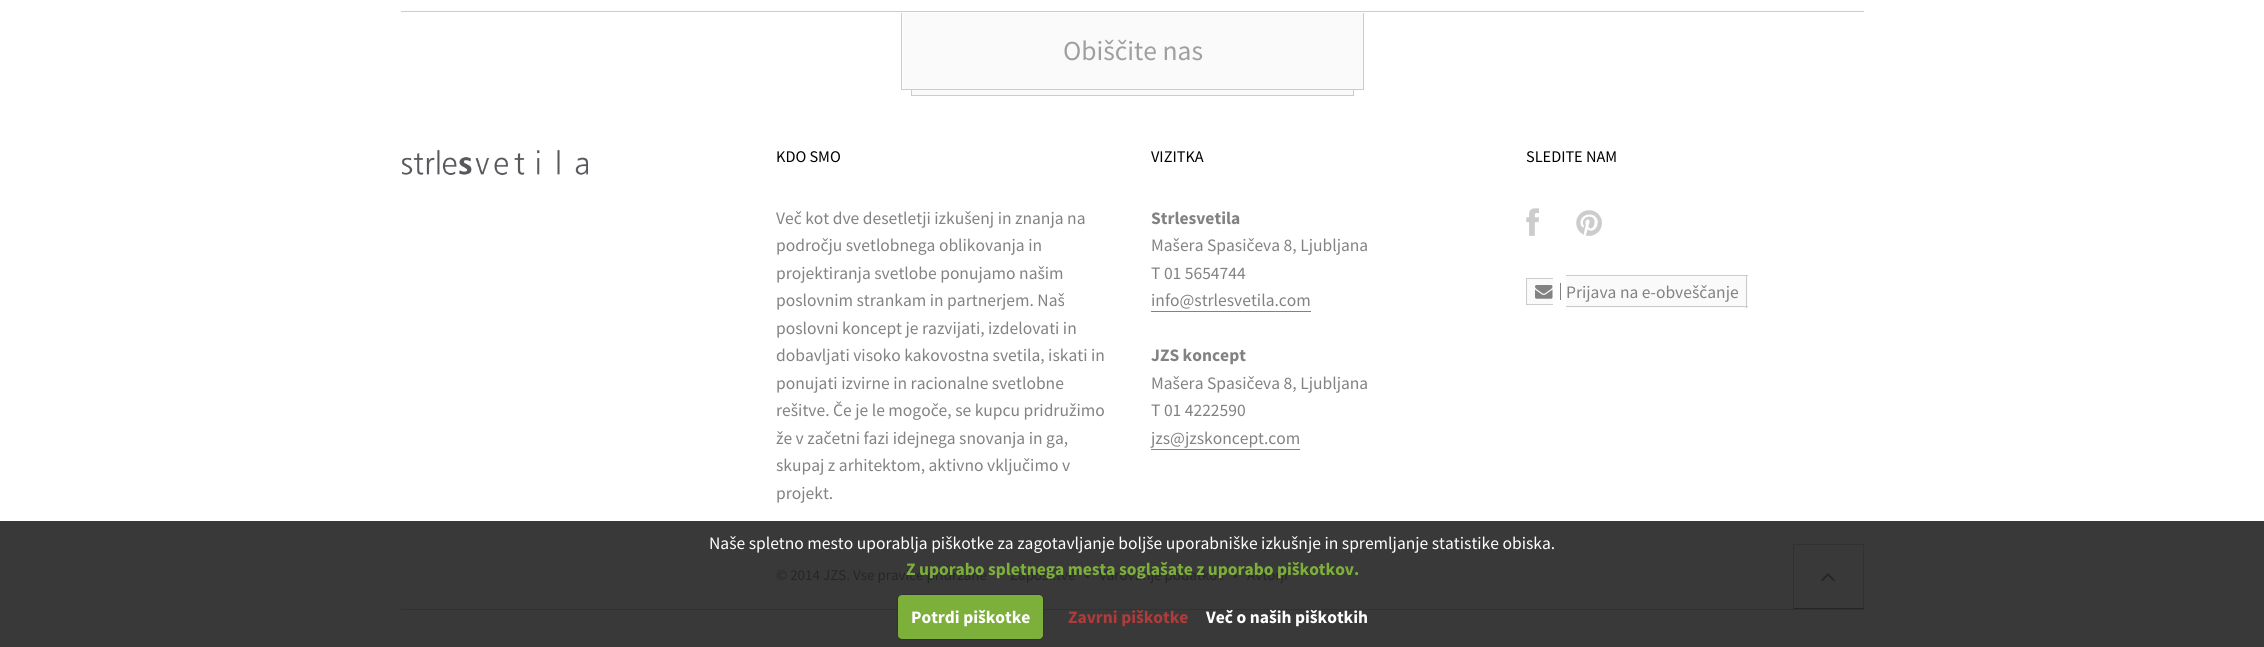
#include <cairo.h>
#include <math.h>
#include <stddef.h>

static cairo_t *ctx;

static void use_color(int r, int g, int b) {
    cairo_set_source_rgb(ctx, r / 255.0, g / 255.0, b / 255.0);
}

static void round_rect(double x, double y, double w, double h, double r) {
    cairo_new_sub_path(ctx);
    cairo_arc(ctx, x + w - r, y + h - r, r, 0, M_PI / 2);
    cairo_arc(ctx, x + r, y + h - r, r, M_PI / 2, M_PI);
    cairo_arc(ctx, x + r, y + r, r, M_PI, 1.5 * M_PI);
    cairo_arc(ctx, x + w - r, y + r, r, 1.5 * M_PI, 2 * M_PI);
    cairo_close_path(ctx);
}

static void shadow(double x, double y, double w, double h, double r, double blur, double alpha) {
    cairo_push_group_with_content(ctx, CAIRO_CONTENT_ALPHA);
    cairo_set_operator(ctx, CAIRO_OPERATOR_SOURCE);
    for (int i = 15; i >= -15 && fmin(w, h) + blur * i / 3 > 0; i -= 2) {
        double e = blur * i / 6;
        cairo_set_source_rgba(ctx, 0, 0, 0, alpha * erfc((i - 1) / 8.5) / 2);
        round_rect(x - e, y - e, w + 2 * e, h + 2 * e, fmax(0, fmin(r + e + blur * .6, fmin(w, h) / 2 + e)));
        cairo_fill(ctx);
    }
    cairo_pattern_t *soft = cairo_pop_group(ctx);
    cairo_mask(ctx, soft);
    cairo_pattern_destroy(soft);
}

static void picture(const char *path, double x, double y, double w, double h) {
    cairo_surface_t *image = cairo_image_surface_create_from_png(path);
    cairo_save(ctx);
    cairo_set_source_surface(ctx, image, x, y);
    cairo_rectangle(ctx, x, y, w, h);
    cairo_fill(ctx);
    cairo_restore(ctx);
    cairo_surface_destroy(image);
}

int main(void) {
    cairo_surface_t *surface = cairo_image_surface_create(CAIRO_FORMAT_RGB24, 2264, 647);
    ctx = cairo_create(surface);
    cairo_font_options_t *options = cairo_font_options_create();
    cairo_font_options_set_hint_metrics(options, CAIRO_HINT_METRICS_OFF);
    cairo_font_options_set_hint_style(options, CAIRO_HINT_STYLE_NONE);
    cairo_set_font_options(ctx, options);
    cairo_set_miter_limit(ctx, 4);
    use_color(255, 255, 255);
    cairo_paint(ctx);
    use_color(57, 57, 57);
    cairo_rectangle(ctx, 0, 521, 2264, 126);
    cairo_fill(ctx);
    use_color(204, 204, 204);
    cairo_rectangle(ctx, 401, 11, 1463, 1);
    cairo_fill(ctx);
    use_color(49, 49, 49);
    cairo_rectangle(ctx, 401, 609, 1463, 1);
    cairo_fill(ctx);
    use_color(250, 250, 250);
    cairo_rectangle(ctx, 903, 13, 460, 76);
    cairo_fill(ctx);
    use_color(204, 204, 204);
    cairo_rectangle(ctx, 1363, 13, 1, 77);
    cairo_fill(ctx);
    cairo_rectangle(ctx, 901, 89, 463, 1);
    cairo_fill(ctx);
    cairo_rectangle(ctx, 901, 13, 1, 77);
    cairo_fill(ctx);
    cairo_select_font_face(ctx, "Source Sans Pro", CAIRO_FONT_SLANT_NORMAL, CAIRO_FONT_WEIGHT_NORMAL);
    cairo_set_font_size(ctx, 27.5);
    use_color(159, 159, 159);
    cairo_move_to(ctx, 1063, 60);
    cairo_show_text(ctx, "Obiščite nas");
    use_color(250, 250, 250);
    cairo_rectangle(ctx, 911, 90, 443, 5);
    cairo_fill(ctx);
    use_color(204, 204, 204);
    cairo_rectangle(ctx, 1353, 90, 1, 6);
    cairo_fill(ctx);
    cairo_rectangle(ctx, 911, 95, 443, 1);
    cairo_fill(ctx);
    cairo_rectangle(ctx, 911, 90, 1, 6);
    cairo_fill(ctx);
    picture("img1.png", 402, 149, 186, 26);
    cairo_set_font_size(ctx, 16.25);
    use_color(0, 0, 0);
    cairo_move_to(ctx, 776, 162);
    cairo_show_text(ctx, "KDO SMO");
    cairo_set_font_size(ctx, 17.5);
    use_color(130, 130, 130);
    cairo_move_to(ctx, 776, 224);
    cairo_show_text(ctx, "Več kot dve desetletji izkušenj in znanja na");
    cairo_move_to(ctx, 776, 251);
    cairo_show_text(ctx, "področju svetlobnega oblikovanja in");
    cairo_move_to(ctx, 776, 279);
    cairo_show_text(ctx, "projektiranja svetlobe ponujamo našim");
    cairo_move_to(ctx, 776, 306);
    cairo_show_text(ctx, "poslovnim strankam in partnerjem. Naš");
    cairo_move_to(ctx, 776, 334);
    cairo_show_text(ctx, "poslovni koncept je razvijati, izdelovati in");
    cairo_move_to(ctx, 776, 361);
    cairo_show_text(ctx, "dobavljati visoko kakovostna svetila, iskati in");
    cairo_move_to(ctx, 776, 389);
    cairo_show_text(ctx, "ponujati izvirne in racionalne svetlobne");
    cairo_move_to(ctx, 776, 416);
    cairo_show_text(ctx, "rešitve. Če je le mogoče, se kupcu pridružimo");
    cairo_move_to(ctx, 776, 444);
    cairo_show_text(ctx, "že v začetni fazi idejnega snovanja in ga,");
    cairo_move_to(ctx, 776, 471);
    cairo_show_text(ctx, "skupaj z arhitektom, aktivno vključimo v");
    cairo_move_to(ctx, 776, 499);
    cairo_show_text(ctx, "projekt.");
    cairo_set_font_size(ctx, 16.25);
    use_color(0, 0, 0);
    cairo_move_to(ctx, 1151, 162);
    cairo_show_text(ctx, "VIZITKA");
    cairo_select_font_face(ctx, "Source Sans Pro", CAIRO_FONT_SLANT_NORMAL, CAIRO_FONT_WEIGHT_BOLD);
    cairo_set_font_size(ctx, 17.5);
    use_color(130, 130, 130);
    cairo_move_to(ctx, 1151, 224);
    cairo_show_text(ctx, "Strlesvetila");
    cairo_select_font_face(ctx, "Source Sans Pro", CAIRO_FONT_SLANT_NORMAL, CAIRO_FONT_WEIGHT_NORMAL);
    cairo_move_to(ctx, 1151, 251);
    cairo_show_text(ctx, "Mašera Spasičeva 8, Ljubljana");
    cairo_move_to(ctx, 1151, 279);
    cairo_show_text(ctx, "T 01 5654744");
    cairo_move_to(ctx, 1151, 306);
    cairo_show_text(ctx, "info@strlesvetila.com");
    cairo_rectangle(ctx, 1151, 311, 160, 1);
    cairo_fill(ctx);
    cairo_select_font_face(ctx, "Source Sans Pro", CAIRO_FONT_SLANT_NORMAL, CAIRO_FONT_WEIGHT_BOLD);
    cairo_move_to(ctx, 1151, 361);
    cairo_show_text(ctx, "JZS koncept");
    cairo_select_font_face(ctx, "Source Sans Pro", CAIRO_FONT_SLANT_NORMAL, CAIRO_FONT_WEIGHT_NORMAL);
    cairo_move_to(ctx, 1151, 389);
    cairo_show_text(ctx, "Mašera Spasičeva 8, Ljubljana");
    cairo_move_to(ctx, 1151, 416);
    cairo_show_text(ctx, "T 01 4222590");
    cairo_move_to(ctx, 1151, 444);
    cairo_show_text(ctx, "jzs@jzskoncept.com");
    cairo_rectangle(ctx, 1151, 449, 149, 1);
    cairo_fill(ctx);
    cairo_set_font_size(ctx, 16.25);
    use_color(0, 0, 0);
    cairo_move_to(ctx, 1526, 162);
    cairo_show_text(ctx, "SLEDITE NAM");
    picture("img2.png", 1526, 208, 13, 28);
    picture("img3.png", 1576, 210, 26, 26);
    use_color(250, 250, 250);
    cairo_rectangle(ctx, 1527, 279, 26, 25);
    cairo_fill(ctx);
    use_color(204, 204, 204);
    cairo_rectangle(ctx, 1526, 278, 27, 1);
    cairo_fill(ctx);
    cairo_rectangle(ctx, 1526, 304, 27, 1);
    cairo_fill(ctx);
    cairo_rectangle(ctx, 1526, 278, 1, 27);
    cairo_fill(ctx);
    use_color(250, 250, 250);
    cairo_rectangle(ctx, 1566, 276, 182, 32);
    cairo_fill(ctx);
    use_color(204, 204, 204);
    cairo_rectangle(ctx, 1566, 275, 182, 1);
    cairo_fill(ctx);
    cairo_rectangle(ctx, 1746, 275, 1, 33);
    cairo_fill(ctx);
    cairo_rectangle(ctx, 1566, 306, 182, 1);
    cairo_fill(ctx);
    use_color(130, 130, 130);
    cairo_rectangle(ctx, 1560, 283, 1, 17);
    cairo_fill(ctx);
    picture("img4.png", 1535, 285, 18, 14);
    cairo_set_font_size(ctx, 17.5);
    cairo_move_to(ctx, 1566, 298);
    cairo_show_text(ctx, "Prijava na e-obveščanje");
    cairo_set_font_size(ctx, 15);
    use_color(38, 38, 38);
    cairo_move_to(ctx, 776, 580);
    cairo_show_text(ctx, "© 2014 JZS. Vse pravice pridržane");
    cairo_move_to(ctx, 996, 580);
    cairo_show_text(ctx, "•");
    cairo_move_to(ctx, 1010, 580);
    cairo_show_text(ctx, "Zaposlitve");
    cairo_move_to(ctx, 1085, 580);
    cairo_show_text(ctx, "•");
    cairo_move_to(ctx, 1099, 580);
    cairo_show_text(ctx, "Varovanje podatkov");
    cairo_move_to(ctx, 1233, 580);
    cairo_show_text(ctx, "•");
    cairo_move_to(ctx, 1247, 580);
    cairo_show_text(ctx, "Avtorji");
    use_color(49, 49, 49);
    cairo_rectangle(ctx, 1793, 544, 71, 1);
    cairo_fill(ctx);
    cairo_rectangle(ctx, 1863, 544, 1, 65);
    cairo_fill(ctx);
    use_color(38, 38, 38);
    cairo_rectangle(ctx, 1793, 608, 71, 1);
    cairo_fill(ctx);
    use_color(49, 49, 49);
    cairo_rectangle(ctx, 1793, 544, 1, 65);
    cairo_fill(ctx);
    picture("img5.png", 1821, 573, 14, 9);
    cairo_set_font_size(ctx, 17.5);
    use_color(255, 255, 255);
    cairo_move_to(ctx, 709, 549);
    cairo_show_text(ctx, "Naše spletno mesto uporablja piškotke za zagotavljanje boljše uporabniške izkušnje in spremljanje statistike obiska.");
    cairo_select_font_face(ctx, "Source Sans Pro", CAIRO_FONT_SLANT_NORMAL, CAIRO_FONT_WEIGHT_BOLD);
    use_color(125, 175, 59);
    cairo_move_to(ctx, 906, 575);
    cairo_show_text(ctx, "Z uporabo spletnega mesta soglašate z uporabo piškotkov.");
    use_color(0, 0, 0);
    shadow(898, 595, 145, 44, 4, 1, 0.25);
    use_color(125, 175, 59);
    round_rect(898, 595, 145, 44, 4);
    cairo_fill(ctx);
    use_color(255, 255, 255);
    cairo_move_to(ctx, 911, 623);
    cairo_show_text(ctx, "Potrdi piškotke");
    use_color(175, 59, 59);
    cairo_move_to(ctx, 1068, 623);
    cairo_show_text(ctx, "Zavrni piškotke");
    use_color(255, 255, 255);
    cairo_move_to(ctx, 1206, 623);
    cairo_show_text(ctx, "Več o naših piškotkih");
    cairo_surface_write_to_png(surface, "result.png");
    cairo_font_options_destroy(options);
    cairo_destroy(ctx);
    cairo_surface_destroy(surface);
    return 0;
}
